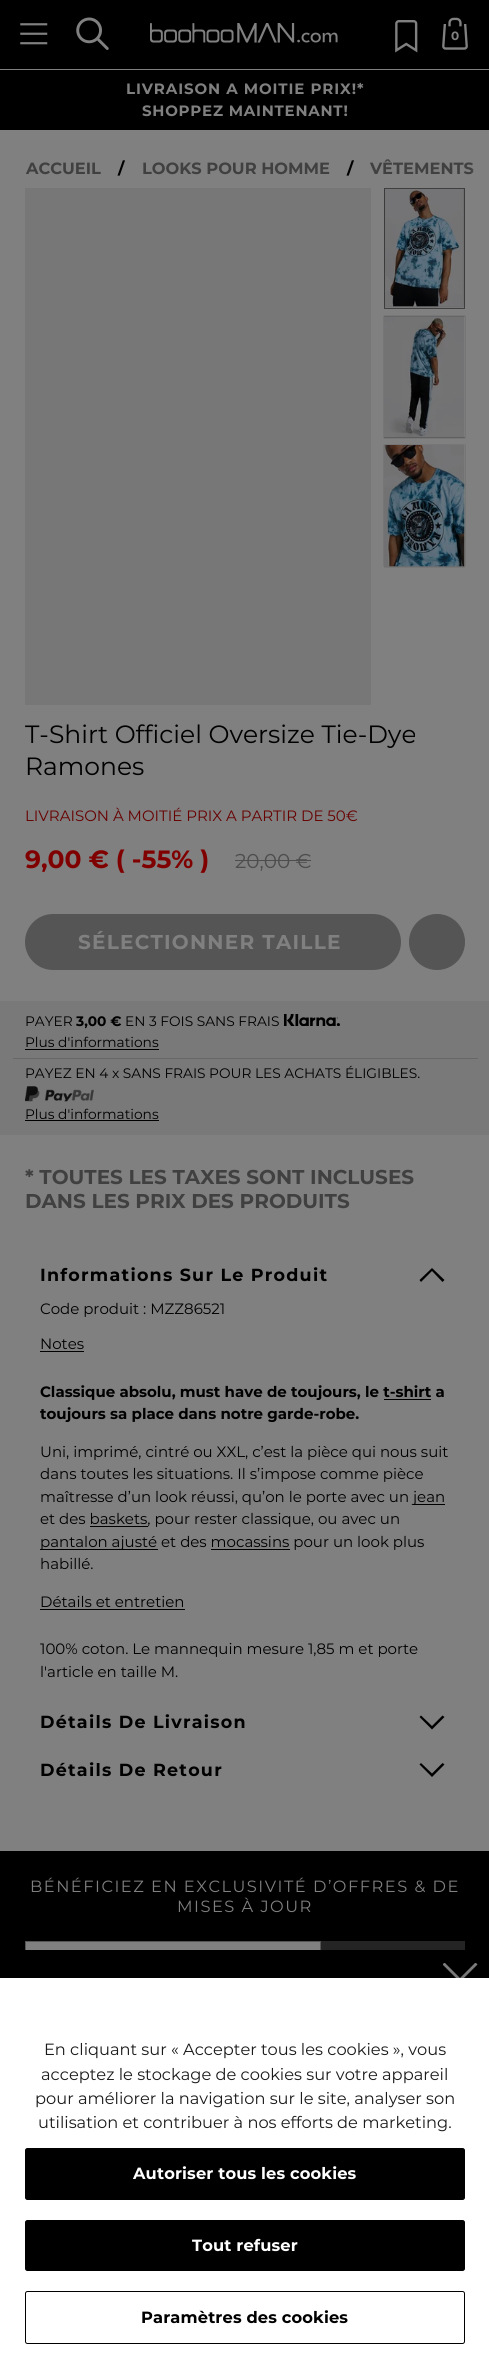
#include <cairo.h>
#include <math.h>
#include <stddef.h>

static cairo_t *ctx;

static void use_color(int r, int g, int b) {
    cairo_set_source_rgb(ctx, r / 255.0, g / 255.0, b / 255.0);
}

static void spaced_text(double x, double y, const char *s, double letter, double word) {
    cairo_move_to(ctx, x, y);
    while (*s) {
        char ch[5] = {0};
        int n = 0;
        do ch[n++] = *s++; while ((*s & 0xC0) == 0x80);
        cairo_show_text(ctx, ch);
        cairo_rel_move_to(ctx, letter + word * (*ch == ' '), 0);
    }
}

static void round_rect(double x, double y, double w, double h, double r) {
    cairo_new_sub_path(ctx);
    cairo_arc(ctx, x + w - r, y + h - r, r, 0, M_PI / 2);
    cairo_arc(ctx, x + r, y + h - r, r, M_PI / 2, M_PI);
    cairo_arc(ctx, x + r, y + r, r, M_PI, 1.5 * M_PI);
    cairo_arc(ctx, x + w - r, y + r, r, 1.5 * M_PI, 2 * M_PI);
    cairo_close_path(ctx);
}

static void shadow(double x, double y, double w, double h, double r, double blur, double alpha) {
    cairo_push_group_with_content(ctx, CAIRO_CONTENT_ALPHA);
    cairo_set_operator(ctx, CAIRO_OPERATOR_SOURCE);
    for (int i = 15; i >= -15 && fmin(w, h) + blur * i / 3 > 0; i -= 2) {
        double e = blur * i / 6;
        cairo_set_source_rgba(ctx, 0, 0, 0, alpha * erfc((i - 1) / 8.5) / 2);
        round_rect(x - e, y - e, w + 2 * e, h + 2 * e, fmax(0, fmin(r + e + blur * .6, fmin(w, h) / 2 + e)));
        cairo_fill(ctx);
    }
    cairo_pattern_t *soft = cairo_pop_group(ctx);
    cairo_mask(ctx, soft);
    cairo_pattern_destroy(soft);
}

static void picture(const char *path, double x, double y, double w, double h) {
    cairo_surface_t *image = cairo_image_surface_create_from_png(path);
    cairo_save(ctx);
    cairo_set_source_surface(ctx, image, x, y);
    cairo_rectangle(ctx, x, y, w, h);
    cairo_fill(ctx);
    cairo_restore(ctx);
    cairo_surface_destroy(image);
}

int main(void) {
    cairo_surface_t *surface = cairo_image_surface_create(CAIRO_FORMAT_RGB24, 489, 2363);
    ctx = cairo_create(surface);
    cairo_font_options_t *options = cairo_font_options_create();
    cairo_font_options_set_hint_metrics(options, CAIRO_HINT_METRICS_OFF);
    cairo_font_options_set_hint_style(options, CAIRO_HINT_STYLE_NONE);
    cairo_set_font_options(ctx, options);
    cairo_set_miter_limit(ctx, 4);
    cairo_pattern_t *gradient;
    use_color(128, 128, 128);
    cairo_paint(ctx);
    use_color(0, 0, 0);
    cairo_rectangle(ctx, 0, 0, 489, 69);
    cairo_fill(ctx);
    picture("img1.png", 20, 23, 28, 22);
    picture("img2.png", 76, 17, 33, 33);
    picture("img3.png", 150, 23, 188, 20);
    picture("img4.png", 395, 20, 23, 33);
    picture("img5.png", 442, 17, 26, 33);
    cairo_select_font_face(ctx, "Montserrat", CAIRO_FONT_SLANT_NORMAL, CAIRO_FONT_WEIGHT_BOLD);
    cairo_set_font_size(ctx, 12);
    use_color(128, 128, 128);
    cairo_move_to(ctx, 451, 40);
    cairo_show_text(ctx, "0");
    use_color(0, 0, 0);
    cairo_rectangle(ctx, 0, 70, 489, 60);
    cairo_fill(ctx);
    cairo_set_font_size(ctx, 15);
    use_color(128, 128, 128);
    spaced_text(126, 94, "LIVRAISON A MOITIE PRIX!*", 0.9, 0);
    spaced_text(142, 116, "SHOPPEZ MAINTENANT!", 0.75, 0);
    cairo_set_font_size(ctx, 16.25);
    use_color(65, 64, 65);
    cairo_move_to(ctx, 26, 174);
    cairo_show_text(ctx, "ACCUEIL");
    use_color(0, 0, 0);
    cairo_move_to(ctx, 118, 174);
    cairo_show_text(ctx, "/");
    use_color(65, 64, 65);
    cairo_move_to(ctx, 142, 174);
    cairo_show_text(ctx, "LOOKS POUR HOMME");
    use_color(0, 0, 0);
    cairo_move_to(ctx, 347, 174);
    cairo_show_text(ctx, "/");
    use_color(65, 64, 65);
    cairo_move_to(ctx, 370, 174);
    cairo_show_text(ctx, "VÊTEMENTS");
    gradient = cairo_pattern_create_linear(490, 163, 470, 163);
    cairo_pattern_add_color_stop_rgba(gradient, 0.1, 0.502, 0.502, 0.502, 1);
    cairo_pattern_add_color_stop_rgba(gradient, 1, 0.502, 0.502, 0.502, 0);
    cairo_set_source(ctx, gradient);
    cairo_pattern_destroy(gradient);
    cairo_rectangle(ctx, 471, 163, 3, 11);
    cairo_fill(ctx);
    use_color(119, 119, 119);
    cairo_rectangle(ctx, 25, 188, 346, 517);
    cairo_fill(ctx);
    cairo_rectangle(ctx, 384.5, 188.5, 80, 120);
    use_color(64, 64, 64);
    cairo_set_line_width(ctx, 1);
    cairo_stroke(ctx);
    use_color(119, 119, 119);
    cairo_rectangle(ctx, 385, 189, 79, 119);
    cairo_fill(ctx);
    use_color(0, 0, 0);
    shadow(385, 189, 79, 117, 0, 0.5, 0.3);
    picture("img6.png", 385, 188, 79, 119);
    use_color(119, 119, 119);
    cairo_rectangle(ctx, 384, 316, 81, 122);
    cairo_fill(ctx);
    use_color(0, 0, 0);
    shadow(384, 316, 81, 122, 0, 0.5, 0.3);
    picture("img7.png", 384, 316, 81, 122);
    use_color(119, 119, 119);
    cairo_rectangle(ctx, 384, 566, 81, 2);
    cairo_fill(ctx);
    use_color(0, 0, 0);
    shadow(384, 445, 81, 121, 0, 0.5, 0.3);
    picture("img8.png", 384, 445, 81, 122);
    cairo_select_font_face(ctx, "Montserrat", CAIRO_FONT_SLANT_NORMAL, CAIRO_FONT_WEIGHT_NORMAL);
    cairo_set_font_size(ctx, 25);
    use_color(0, 0, 0);
    cairo_move_to(ctx, 25, 743);
    cairo_show_text(ctx, "T-Shirt Officiel Oversize Tie-Dye");
    cairo_move_to(ctx, 25, 775);
    cairo_show_text(ctx, "Ramones");
    cairo_set_font_size(ctx, 15);
    use_color(103, 0, 0);
    cairo_move_to(ctx, 25, 821);
    cairo_show_text(ctx, "LIVRAISON À MOITIÉ PRIX A PARTIR DE 50€");
    cairo_select_font_face(ctx, "Montserrat", CAIRO_FONT_SLANT_NORMAL, CAIRO_FONT_WEIGHT_BOLD);
    cairo_set_font_size(ctx, 25);
    use_color(128, 0, 0);
    cairo_move_to(ctx, 25, 868);
    cairo_show_text(ctx, "9,00 € ( -55% )");
    cairo_select_font_face(ctx, "Montserrat", CAIRO_FONT_SLANT_NORMAL, CAIRO_FONT_WEIGHT_NORMAL);
    cairo_set_font_size(ctx, 20);
    use_color(77, 77, 77);
    cairo_move_to(ctx, 235, 868);
    cairo_show_text(ctx, "20,00 €");
    cairo_rectangle(ctx, 235, 860, 76, 1);
    cairo_fill(ctx);
    use_color(85, 85, 85);
    round_rect(25, 914, 376, 56, 28);
    cairo_fill(ctx);
    cairo_select_font_face(ctx, "Montserrat", CAIRO_FONT_SLANT_NORMAL, CAIRO_FONT_WEIGHT_BOLD);
    use_color(128, 128, 128);
    spaced_text(78, 949, "SÉLECTIONNER TAILLE", 1.25, 0);
    use_color(85, 85, 85);
    cairo_new_path(ctx);
    cairo_arc(ctx, 437, 942, 27.5, 0, 2 * M_PI);
    cairo_fill_preserve(ctx);
    cairo_stroke(ctx);
    use_color(121, 121, 121);
    cairo_rectangle(ctx, 0, 1001, 489, 134);
    cairo_fill(ctx);
    cairo_select_font_face(ctx, "Montserrat", CAIRO_FONT_SLANT_NORMAL, CAIRO_FONT_WEIGHT_NORMAL);
    cairo_set_font_size(ctx, 13.75);
    use_color(0, 0, 0);
    cairo_move_to(ctx, 25, 1026);
    cairo_show_text(ctx, "PAYER");
    cairo_select_font_face(ctx, "Montserrat", CAIRO_FONT_SLANT_NORMAL, CAIRO_FONT_WEIGHT_BOLD);
    cairo_move_to(ctx, 76, 1026);
    cairo_show_text(ctx, "3,00 €");
    cairo_select_font_face(ctx, "Montserrat", CAIRO_FONT_SLANT_NORMAL, CAIRO_FONT_WEIGHT_NORMAL);
    cairo_move_to(ctx, 125, 1026);
    cairo_show_text(ctx, "EN 3 FOIS SANS FRAIS");
    picture("img9.png", 284, 1014, 56, 12);
    cairo_move_to(ctx, 25, 1047);
    cairo_show_text(ctx, "Plus d'informations");
    cairo_rectangle(ctx, 25, 1049, 134, 1);
    cairo_fill(ctx);
    use_color(103, 103, 103);
    cairo_rectangle(ctx, 13, 1058, 465, 1);
    cairo_fill(ctx);
    use_color(0, 0, 0);
    cairo_move_to(ctx, 25, 1078);
    cairo_show_text(ctx, "PAYEZ EN 4 x SANS FRAIS POUR LES ACHATS ÉLIGIBLES.");
    picture("img10.png", 25, 1086, 69, 16);
    cairo_move_to(ctx, 25, 1119);
    cairo_show_text(ctx, "Plus d'informations");
    cairo_rectangle(ctx, 25, 1120, 134, 1);
    cairo_fill(ctx);
    cairo_select_font_face(ctx, "Montserrat", CAIRO_FONT_SLANT_NORMAL, CAIRO_FONT_WEIGHT_BOLD);
    cairo_set_font_size(ctx, 20);
    use_color(65, 64, 65);
    cairo_move_to(ctx, 25, 1184);
    cairo_show_text(ctx, "* TOUTES LES TAXES SONT INCLUSES");
    cairo_move_to(ctx, 25, 1208);
    cairo_show_text(ctx, "DANS LES PRIX DES PRODUITS");
    cairo_set_font_size(ctx, 17.5);
    use_color(0, 0, 0);
    spaced_text(40, 1281, "Informations Sur Le Produit", 1.25, 0);
    cairo_new_path(ctx);
    cairo_move_to(ctx, 432, 1268);
    cairo_line_to(ctx, 444.5, 1280);
    cairo_line_to(ctx, 442.5, 1282);
    cairo_line_to(ctx, 432, 1271);
    cairo_line_to(ctx, 421, 1282);
    cairo_line_to(ctx, 419.5, 1280);
    cairo_close_path(ctx);
    cairo_fill(ctx);
    cairo_select_font_face(ctx, "Montserrat", CAIRO_FONT_SLANT_NORMAL, CAIRO_FONT_WEIGHT_NORMAL);
    cairo_set_font_size(ctx, 15);
    cairo_move_to(ctx, 40, 1314);
    cairo_show_text(ctx, "Code produit : MZZ86521");
    cairo_move_to(ctx, 40, 1349);
    cairo_show_text(ctx, "Notes");
    cairo_rectangle(ctx, 40, 1351, 44, 1);
    cairo_fill(ctx);
    cairo_select_font_face(ctx, "Montserrat", CAIRO_FONT_SLANT_NORMAL, CAIRO_FONT_WEIGHT_BOLD);
    cairo_move_to(ctx, 40, 1397);
    cairo_show_text(ctx, "Classique absolu, must have de toujours, le t-shirt a");
    cairo_rectangle(ctx, 384, 1399, 47, 1);
    cairo_fill(ctx);
    cairo_move_to(ctx, 40, 1419);
    cairo_show_text(ctx, "toujours sa place dans notre garde-robe.");
    cairo_select_font_face(ctx, "Montserrat", CAIRO_FONT_SLANT_NORMAL, CAIRO_FONT_WEIGHT_NORMAL);
    cairo_move_to(ctx, 40, 1457);
    cairo_show_text(ctx, "Uni, imprimé, cintré ou XXL, c’est la pièce qui nous suit");
    cairo_move_to(ctx, 40, 1479);
    cairo_show_text(ctx, "dans toutes les situations. Il s’impose comme pièce");
    cairo_move_to(ctx, 40, 1502);
    cairo_show_text(ctx, "maîtresse d’un look réussi, qu’on le porte avec un");
    cairo_rectangle(ctx, 413, 1504, 32, 1);
    cairo_fill(ctx);
    cairo_move_to(ctx, 413, 1502);
    cairo_show_text(ctx, "jean");
    cairo_move_to(ctx, 40, 1524);
    cairo_show_text(ctx, "et des baskets, pour rester classique, ou avec un");
    cairo_rectangle(ctx, 90, 1526, 58, 1);
    cairo_fill(ctx);
    cairo_rectangle(ctx, 40, 1549, 118, 1);
    cairo_fill(ctx);
    cairo_move_to(ctx, 40, 1547);
    cairo_show_text(ctx, "pantalon ajusté et des mocassins pour un look plus");
    cairo_rectangle(ctx, 211, 1549, 79, 1);
    cairo_fill(ctx);
    cairo_move_to(ctx, 40, 1569);
    cairo_show_text(ctx, "habillé.");
    cairo_move_to(ctx, 40, 1607);
    cairo_show_text(ctx, "Détails et entretien");
    cairo_rectangle(ctx, 40, 1609, 145, 1);
    cairo_fill(ctx);
    cairo_move_to(ctx, 40, 1654);
    cairo_show_text(ctx, "100% coton. Le mannequin mesure 1,85 m et porte");
    cairo_move_to(ctx, 40, 1677);
    cairo_show_text(ctx, "l'article en taille M.");
    cairo_select_font_face(ctx, "Montserrat", CAIRO_FONT_SLANT_NORMAL, CAIRO_FONT_WEIGHT_BOLD);
    cairo_set_font_size(ctx, 17.5);
    spaced_text(40, 1728, "Détails De Livraison", 1.25, 0);
    cairo_new_path(ctx);
    cairo_move_to(ctx, 432, 1729.5);
    cairo_line_to(ctx, 419.5, 1717);
    cairo_line_to(ctx, 421, 1715.5);
    cairo_line_to(ctx, 432, 1726);
    cairo_line_to(ctx, 442.5, 1715.5);
    cairo_line_to(ctx, 444.5, 1717);
    cairo_close_path(ctx);
    cairo_fill(ctx);
    spaced_text(40, 1776, "Détails De Retour", 1.25, 0);
    cairo_new_path(ctx);
    cairo_move_to(ctx, 432, 1777);
    cairo_line_to(ctx, 419.5, 1764.5);
    cairo_line_to(ctx, 421, 1763);
    cairo_line_to(ctx, 432, 1773.5);
    cairo_line_to(ctx, 442.5, 1763);
    cairo_line_to(ctx, 444.5, 1764.5);
    cairo_close_path(ctx);
    cairo_fill(ctx);
    cairo_rectangle(ctx, 0, 1851, 489, 99);
    cairo_fill(ctx);
    cairo_select_font_face(ctx, "Montserrat", CAIRO_FONT_SLANT_NORMAL, CAIRO_FONT_WEIGHT_NORMAL);
    cairo_set_font_size(ctx, 16.25);
    use_color(128, 128, 128);
    spaced_text(30, 1892, "BÉNÉFICIEZ EN EXCLUSIVITÉ D’OFFRES & DE", 1.5, 0);
    spaced_text(177, 1912, "MISES À JOUR", 1.5, 0);
    cairo_rectangle(ctx, 26, 1942, 294, 8);
    cairo_fill(ctx);
    cairo_rectangle(ctx, 25.5, 1941.5, 295, 47);
    use_color(85, 85, 85);
    cairo_stroke(ctx);
    use_color(36, 36, 36);
    cairo_rectangle(ctx, 321, 1941, 144, 9);
    cairo_fill(ctx);
    use_color(0, 0, 0);
    cairo_rectangle(ctx, 0, 1950, 489, 28);
    cairo_fill(ctx);
    cairo_save(ctx);
    cairo_rectangle(ctx, 443, 1963, 35, 40);
    cairo_clip(ctx);
    use_color(128, 128, 128);
    cairo_new_path(ctx);
    cairo_move_to(ctx, 477.5, 1964.5);
    cairo_line_to(ctx, 475.5, 1962.5);
    cairo_line_to(ctx, 460, 1978);
    cairo_line_to(ctx, 444.5, 1962.5);
    cairo_line_to(ctx, 442.5, 1964.5);
    cairo_line_to(ctx, 458, 1980);
    cairo_line_to(ctx, 442.5, 1995.5);
    cairo_line_to(ctx, 444.5, 1997.5);
    cairo_line_to(ctx, 460, 1982);
    cairo_line_to(ctx, 475.5, 1997.5);
    cairo_line_to(ctx, 477.5, 1995.5);
    cairo_line_to(ctx, 462, 1980);
    cairo_close_path(ctx);
    cairo_fill(ctx);
    cairo_restore(ctx);
    use_color(0, 0, 0);
    shadow(0, 1978, 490, 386, 0, 11, 0.2);
    use_color(255, 255, 255);
    cairo_rectangle(ctx, 0, 1978, 489, 385);
    cairo_fill(ctx);
    use_color(27, 27, 27);
    cairo_move_to(ctx, 44, 2055);
    cairo_show_text(ctx, "En cliquant sur « Accepter tous les cookies », vous");
    cairo_move_to(ctx, 41, 2080);
    cairo_show_text(ctx, "acceptez le stockage de cookies sur votre appareil");
    cairo_move_to(ctx, 35, 2104);
    cairo_show_text(ctx, "pour améliorer la navigation sur le site, analyser son");
    cairo_move_to(ctx, 38, 2128);
    cairo_show_text(ctx, "utilisation et contribuer à nos efforts de marketing.");
    use_color(0, 0, 0);
    round_rect(25.5, 2148.5, 439, 51, 2);
    cairo_fill_preserve(ctx);
    cairo_stroke(ctx);
    cairo_select_font_face(ctx, "Montserrat", CAIRO_FONT_SLANT_NORMAL, CAIRO_FONT_WEIGHT_BOLD);
    use_color(255, 255, 255);
    spaced_text(133, 2179, "Autoriser tous les cookies", 0.15, 0);
    use_color(0, 0, 0);
    round_rect(25.5, 2220.5, 439, 50, 2);
    cairo_fill_preserve(ctx);
    cairo_stroke(ctx);
    use_color(255, 255, 255);
    spaced_text(192, 2251, "Tout refuser", 0.15, 0);
    round_rect(25.5, 2291.5, 439, 52, 2);
    use_color(0, 0, 0);
    cairo_stroke(ctx);
    spaced_text(141, 2323, "Paramètres des cookies", 0.15, 0);
    cairo_surface_write_to_png(surface, "result.png");
    cairo_font_options_destroy(options);
    cairo_destroy(ctx);
    cairo_surface_destroy(surface);
    return 0;
}
